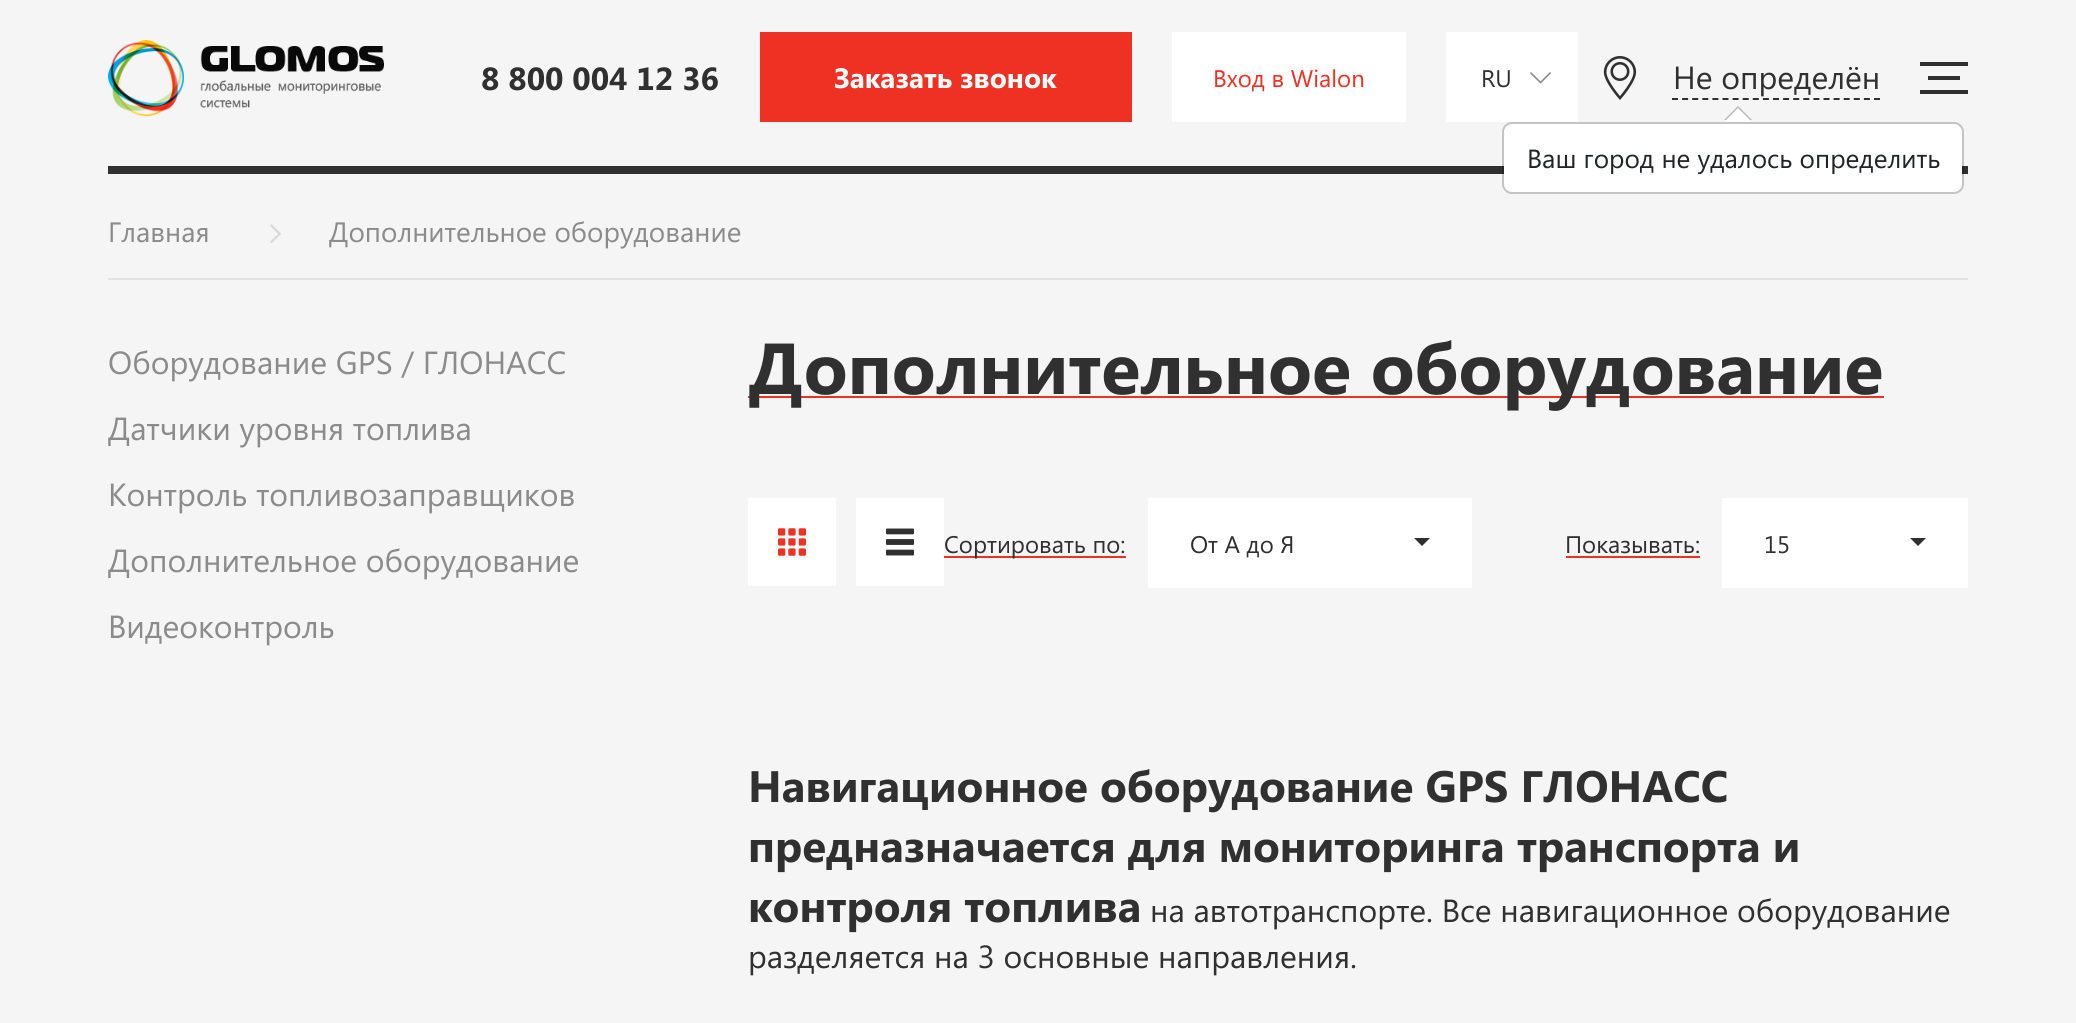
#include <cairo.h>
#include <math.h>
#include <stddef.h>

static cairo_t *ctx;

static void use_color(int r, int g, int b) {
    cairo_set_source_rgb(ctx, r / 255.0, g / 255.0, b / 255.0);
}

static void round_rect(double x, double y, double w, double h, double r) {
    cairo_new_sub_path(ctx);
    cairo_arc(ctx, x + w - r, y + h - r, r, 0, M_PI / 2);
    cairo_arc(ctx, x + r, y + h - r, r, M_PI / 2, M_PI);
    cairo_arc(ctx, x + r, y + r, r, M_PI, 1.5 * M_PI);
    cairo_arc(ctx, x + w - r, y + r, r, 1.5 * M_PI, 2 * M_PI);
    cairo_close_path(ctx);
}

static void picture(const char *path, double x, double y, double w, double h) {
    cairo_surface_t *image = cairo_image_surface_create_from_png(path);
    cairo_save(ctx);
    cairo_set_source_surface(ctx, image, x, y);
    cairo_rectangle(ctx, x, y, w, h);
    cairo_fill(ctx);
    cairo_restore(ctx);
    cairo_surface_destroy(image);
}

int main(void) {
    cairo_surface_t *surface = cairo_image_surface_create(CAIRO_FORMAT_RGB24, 2076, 1023);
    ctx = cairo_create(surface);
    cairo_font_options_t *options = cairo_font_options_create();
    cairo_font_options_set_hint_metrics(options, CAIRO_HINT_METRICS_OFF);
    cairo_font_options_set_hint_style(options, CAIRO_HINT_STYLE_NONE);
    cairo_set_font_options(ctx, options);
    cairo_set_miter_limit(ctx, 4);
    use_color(245, 245, 246);
    cairo_paint(ctx);
    picture("img1.png", 108, 40, 76, 76);
    picture("img2.png", 200, 46, 184, 62);
    cairo_select_font_face(ctx, "Segoe UI", CAIRO_FONT_SLANT_NORMAL, CAIRO_FONT_WEIGHT_BOLD);
    cairo_set_font_size(ctx, 32);
    use_color(48, 48, 48);
    cairo_move_to(ctx, 481, 90);
    cairo_show_text(ctx, "8 800 004 12 36");
    use_color(239, 49, 36);
    cairo_rectangle(ctx, 760, 32, 372, 90);
    cairo_fill(ctx);
    cairo_set_font_size(ctx, 28);
    use_color(255, 255, 255);
    cairo_move_to(ctx, 834, 88);
    cairo_show_text(ctx, "Заказать звонок");
    cairo_rectangle(ctx, 1172, 32, 234, 90);
    cairo_fill(ctx);
    cairo_select_font_face(ctx, "Segoe UI", CAIRO_FONT_SLANT_NORMAL, CAIRO_FONT_WEIGHT_NORMAL);
    cairo_set_font_size(ctx, 24);
    use_color(239, 49, 36);
    cairo_move_to(ctx, 1213, 87);
    cairo_show_text(ctx, "Вход в Wialon");
    use_color(255, 255, 255);
    cairo_rectangle(ctx, 1446, 32, 132, 90);
    cairo_fill(ctx);
    use_color(48, 48, 48);
    cairo_move_to(ctx, 1481, 87);
    cairo_show_text(ctx, "RU");
    picture("img3.png", 1530, 72, 21, 12);
    picture("img4.png", 1603, 56, 34, 44);
    cairo_new_path(ctx);
    cairo_move_to(ctx, 1672, 99);
    cairo_line_to(ctx, 1880, 99);
    cairo_set_dash(ctx, (double[]){6, 4.1}, 2, 0);
    cairo_stroke(ctx);
    cairo_set_font_size(ctx, 32);
    cairo_move_to(ctx, 1673, 89);
    cairo_show_text(ctx, "Не определён");
    cairo_rectangle(ctx, 1920, 62, 48, 4);
    cairo_fill(ctx);
    cairo_rectangle(ctx, 1928, 76, 32, 4);
    cairo_fill(ctx);
    cairo_rectangle(ctx, 1920, 90, 48, 4);
    cairo_fill(ctx);
    cairo_rectangle(ctx, 108, 166, 1860, 8);
    cairo_fill(ctx);
    use_color(227, 227, 227);
    cairo_rectangle(ctx, 108, 278, 1860, 2);
    cairo_fill(ctx);
    cairo_set_font_size(ctx, 28);
    use_color(139, 139, 139);
    cairo_move_to(ctx, 108, 242);
    cairo_show_text(ctx, "Главная");
    picture("img5.png", 270, 224, 11, 20);
    cairo_move_to(ctx, 329, 242);
    cairo_show_text(ctx, "Дополнительное оборудование");
    cairo_set_font_size(ctx, 32);
    cairo_move_to(ctx, 108, 374);
    cairo_show_text(ctx, "Оборудование GPS / ГЛОНАСС");
    cairo_move_to(ctx, 108, 440);
    cairo_show_text(ctx, "Датчики уровня топлива");
    cairo_move_to(ctx, 108, 506);
    cairo_show_text(ctx, "Контроль топливозаправщиков");
    cairo_move_to(ctx, 108, 572);
    cairo_show_text(ctx, "Дополнительное оборудование");
    cairo_move_to(ctx, 108, 638);
    cairo_show_text(ctx, "Видеоконтроль");
    use_color(239, 49, 36);
    cairo_rectangle(ctx, 748, 396, 1136, 2);
    cairo_fill(ctx);
    cairo_select_font_face(ctx, "Segoe UI", CAIRO_FONT_SLANT_NORMAL, CAIRO_FONT_WEIGHT_BOLD);
    cairo_set_font_size(ctx, 72);
    use_color(48, 48, 48);
    cairo_move_to(ctx, 748, 394);
    cairo_show_text(ctx, "Дополнительное оборудование");
    use_color(255, 255, 255);
    cairo_rectangle(ctx, 748, 498, 88, 88);
    cairo_fill(ctx);
    picture("img6.png", 778, 528, 28, 28);
    cairo_rectangle(ctx, 856, 498, 88, 88);
    cairo_fill(ctx);
    picture("img7.png", 886, 528, 28, 28);
    use_color(239, 49, 36);
    cairo_rectangle(ctx, 944, 556, 182, 2);
    cairo_fill(ctx);
    cairo_select_font_face(ctx, "Segoe UI", CAIRO_FONT_SLANT_NORMAL, CAIRO_FONT_WEIGHT_NORMAL);
    cairo_set_font_size(ctx, 24);
    use_color(48, 48, 48);
    cairo_move_to(ctx, 944, 553);
    cairo_show_text(ctx, "Сортировать по:");
    use_color(255, 255, 255);
    cairo_rectangle(ctx, 1148, 498, 324, 90);
    cairo_fill(ctx);
    use_color(48, 48, 48);
    cairo_move_to(ctx, 1190, 553);
    cairo_show_text(ctx, "От А до Я");
    cairo_new_path(ctx);
    cairo_move_to(ctx, 1414, 538);
    cairo_line_to(ctx, 1430, 538);
    cairo_line_to(ctx, 1422, 546);
    cairo_close_path(ctx);
    cairo_fill(ctx);
    cairo_move_to(ctx, 1565, 553);
    cairo_show_text(ctx, "Показывать:");
    use_color(239, 49, 36);
    cairo_rectangle(ctx, 1566, 556, 134, 2);
    cairo_fill(ctx);
    use_color(255, 255, 255);
    cairo_rectangle(ctx, 1722, 498, 246, 90);
    cairo_fill(ctx);
    use_color(48, 48, 48);
    cairo_move_to(ctx, 1764, 553);
    cairo_show_text(ctx, "15");
    cairo_new_path(ctx);
    cairo_move_to(ctx, 1910, 538);
    cairo_line_to(ctx, 1926, 538);
    cairo_line_to(ctx, 1918, 546);
    cairo_close_path(ctx);
    cairo_fill(ctx);
    cairo_select_font_face(ctx, "Segoe UI", CAIRO_FONT_SLANT_NORMAL, CAIRO_FONT_WEIGHT_BOLD);
    cairo_set_font_size(ctx, 44);
    cairo_move_to(ctx, 748, 802);
    cairo_show_text(ctx, "Навигационное оборудование GPS ГЛОНАСС");
    cairo_move_to(ctx, 748, 862);
    cairo_show_text(ctx, "предназначается для мониторинга транспорта и");
    cairo_move_to(ctx, 748, 922);
    cairo_show_text(ctx, "контроля топлива");
    cairo_select_font_face(ctx, "Segoe UI", CAIRO_FONT_SLANT_NORMAL, CAIRO_FONT_WEIGHT_NORMAL);
    cairo_set_font_size(ctx, 32);
    cairo_move_to(ctx, 1150, 922);
    cairo_show_text(ctx, "на автотранспорте. Все навигационное оборудование");
    cairo_move_to(ctx, 748, 968);
    cairo_show_text(ctx, "разделяется на 3 основные направления.");
    use_color(255, 255, 255);
    round_rect(1504, 124, 458, 68, 8);
    cairo_fill(ctx);
    round_rect(1503, 123, 460, 70, 9);
    cairo_set_source_rgba(ctx, 0, 0, 0, 0.2);
    cairo_set_dash(ctx, NULL, 0, 0);
    cairo_stroke(ctx);
    use_color(184, 184, 185);
    cairo_new_path(ctx);
    cairo_move_to(ctx, 1752, 120);
    cairo_line_to(ctx, 1724, 120);
    cairo_line_to(ctx, 1738, 106);
    cairo_close_path(ctx);
    cairo_fill(ctx);
    use_color(255, 255, 255);
    cairo_new_path(ctx);
    cairo_move_to(ctx, 1752, 122);
    cairo_line_to(ctx, 1724, 122);
    cairo_line_to(ctx, 1738, 108);
    cairo_close_path(ctx);
    cairo_fill(ctx);
    cairo_set_font_size(ctx, 26.25);
    use_color(33, 37, 41);
    cairo_move_to(ctx, 1527, 168);
    cairo_show_text(ctx, "Ваш город не удалось определить");
    cairo_surface_write_to_png(surface, "result.png");
    cairo_font_options_destroy(options);
    cairo_destroy(ctx);
    cairo_surface_destroy(surface);
    return 0;
}
